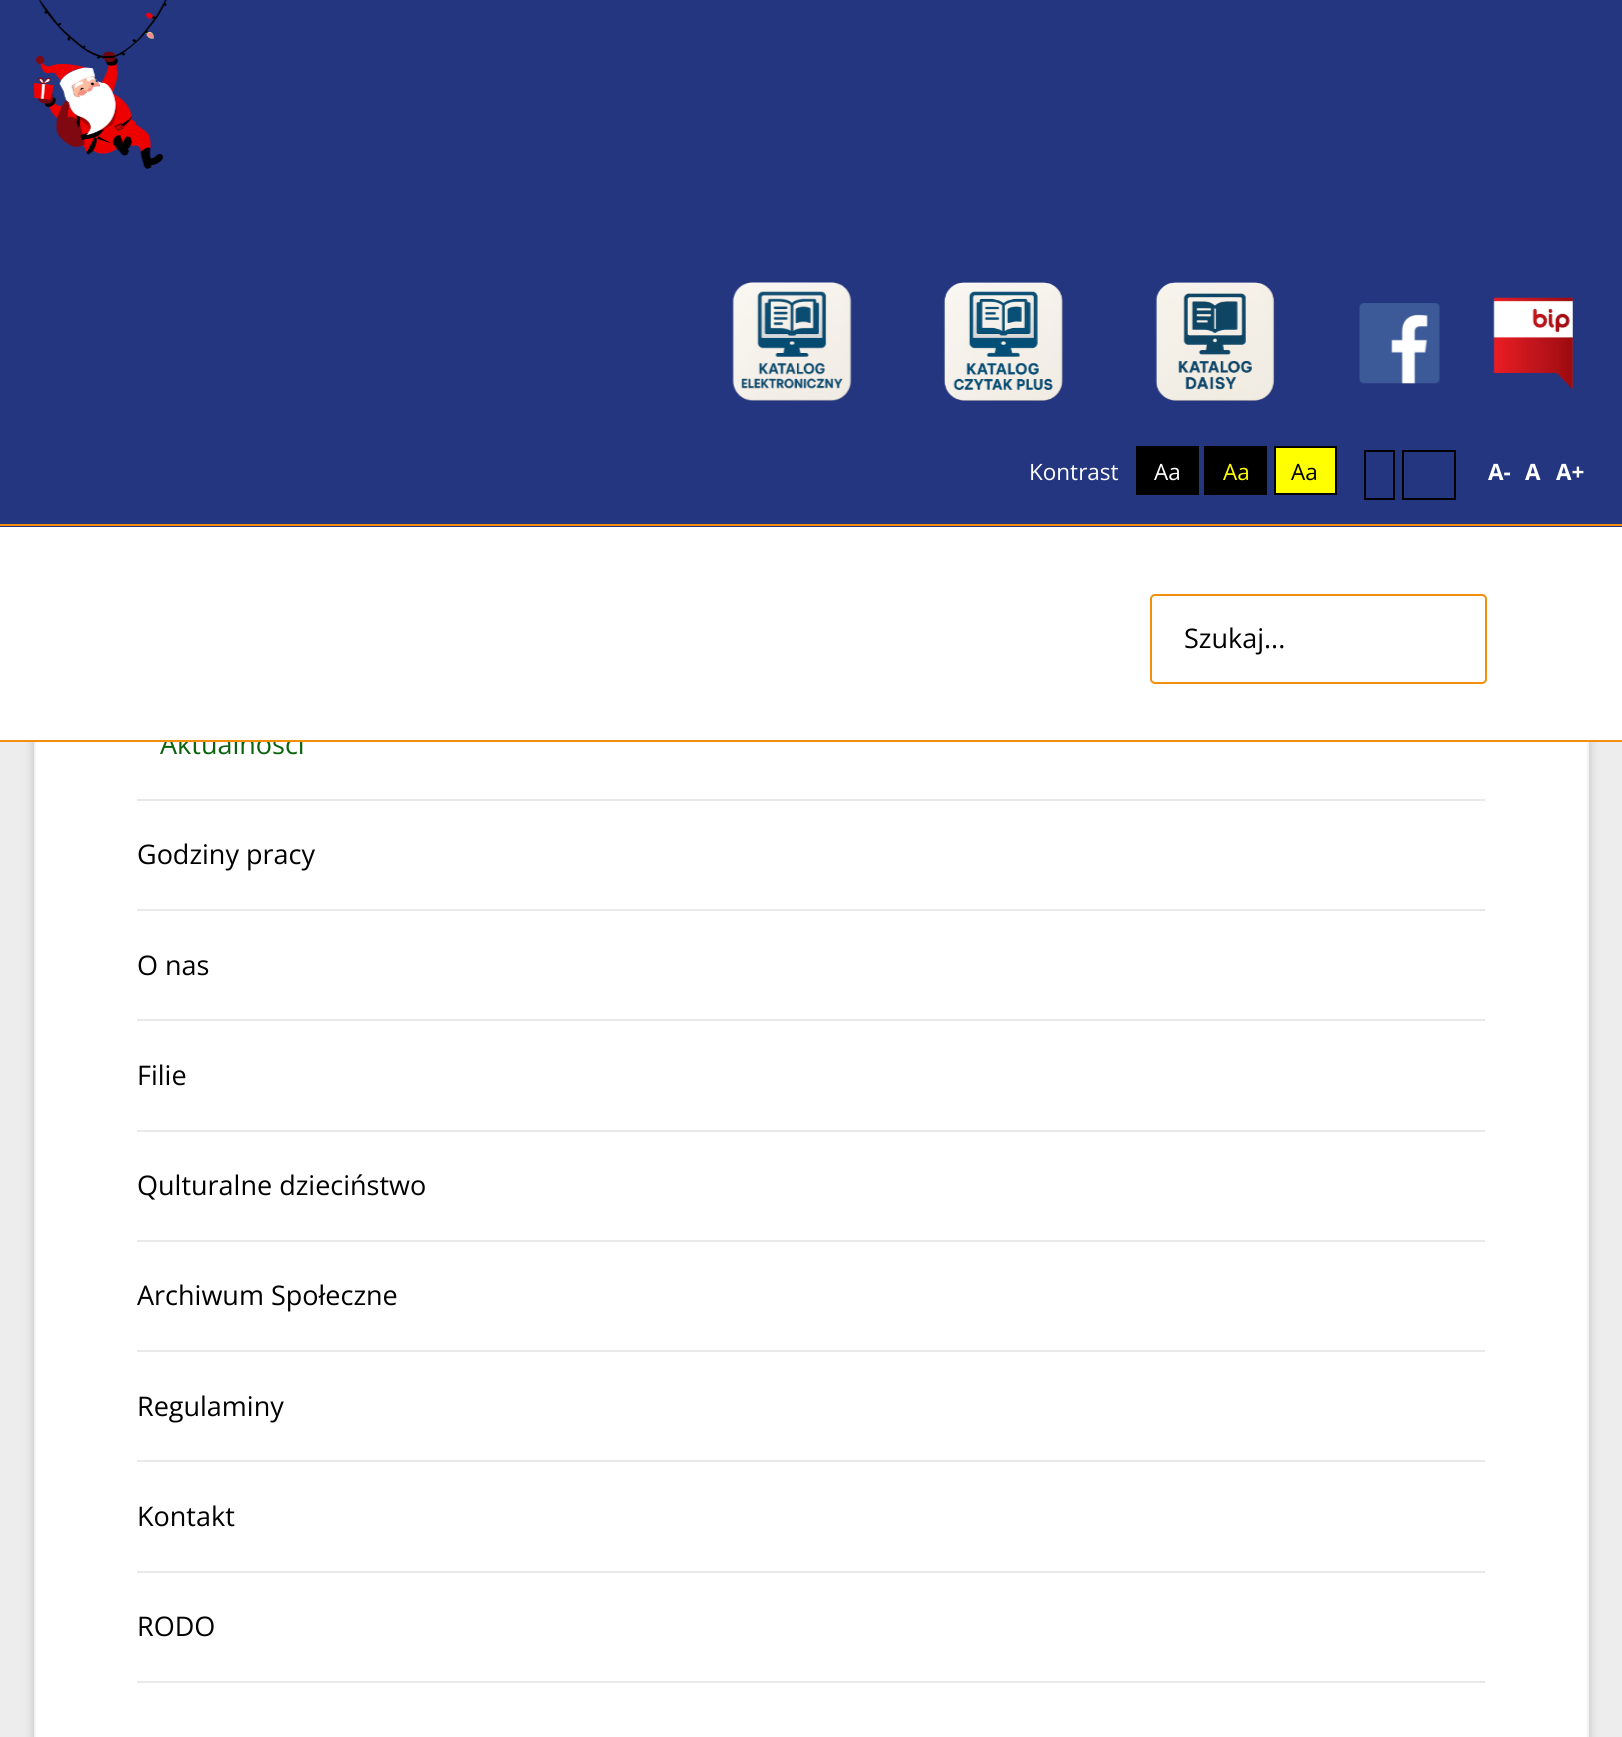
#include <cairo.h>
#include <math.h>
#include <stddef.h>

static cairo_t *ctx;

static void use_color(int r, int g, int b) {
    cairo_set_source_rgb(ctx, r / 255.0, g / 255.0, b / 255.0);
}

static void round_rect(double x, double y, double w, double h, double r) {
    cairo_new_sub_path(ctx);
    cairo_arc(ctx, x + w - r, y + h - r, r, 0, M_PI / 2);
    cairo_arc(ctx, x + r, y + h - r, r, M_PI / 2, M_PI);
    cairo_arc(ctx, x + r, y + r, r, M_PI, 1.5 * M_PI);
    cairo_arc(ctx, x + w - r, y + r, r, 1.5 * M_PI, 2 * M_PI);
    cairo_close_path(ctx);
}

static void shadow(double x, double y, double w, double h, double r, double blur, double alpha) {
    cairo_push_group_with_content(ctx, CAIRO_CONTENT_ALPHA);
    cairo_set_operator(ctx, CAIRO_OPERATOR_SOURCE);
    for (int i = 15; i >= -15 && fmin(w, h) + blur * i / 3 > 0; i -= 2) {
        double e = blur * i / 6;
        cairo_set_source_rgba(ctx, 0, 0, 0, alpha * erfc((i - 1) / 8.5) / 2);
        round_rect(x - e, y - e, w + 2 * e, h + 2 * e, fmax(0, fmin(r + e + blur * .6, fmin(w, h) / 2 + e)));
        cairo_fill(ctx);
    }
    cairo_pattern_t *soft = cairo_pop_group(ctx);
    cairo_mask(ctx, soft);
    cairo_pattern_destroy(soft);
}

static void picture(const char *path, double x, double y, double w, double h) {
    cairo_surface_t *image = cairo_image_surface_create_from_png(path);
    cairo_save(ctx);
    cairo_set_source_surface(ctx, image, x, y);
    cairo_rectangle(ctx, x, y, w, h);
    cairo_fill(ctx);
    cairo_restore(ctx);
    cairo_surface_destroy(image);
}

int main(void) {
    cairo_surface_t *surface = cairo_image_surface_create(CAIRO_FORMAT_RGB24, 1622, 1737);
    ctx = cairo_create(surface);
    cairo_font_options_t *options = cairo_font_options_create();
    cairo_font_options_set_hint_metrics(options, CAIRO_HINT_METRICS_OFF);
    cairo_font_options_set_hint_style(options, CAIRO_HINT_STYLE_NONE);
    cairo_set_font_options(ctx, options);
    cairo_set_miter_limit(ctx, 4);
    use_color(237, 237, 237);
    cairo_paint(ctx);
    use_color(0, 0, 0);
    shadow(34, 520, 1555, 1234, 0, 5.5, 0.2);
    use_color(255, 255, 255);
    cairo_rectangle(ctx, 36, 742, 1551, 995);
    cairo_fill(ctx);
    cairo_rectangle(ctx, 35, 521, 1553, 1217);
    use_color(244, 244, 244);
    cairo_stroke(ctx);
    cairo_select_font_face(ctx, "Open Sans", CAIRO_FONT_SLANT_NORMAL, CAIRO_FONT_WEIGHT_NORMAL);
    cairo_set_font_size(ctx, 27);
    use_color(10, 100, 14);
    cairo_move_to(ctx, 160, 754);
    cairo_show_text(ctx, "Aktualności");
    use_color(242, 143, 14);
    cairo_rectangle(ctx, 0, 740, 1622, 2);
    cairo_fill(ctx);
    use_color(36, 54, 128);
    cairo_rectangle(ctx, 0, 0, 1622, 527);
    cairo_fill(ctx);
    use_color(242, 143, 14);
    cairo_rectangle(ctx, 0, 524, 1622, 2);
    cairo_fill(ctx);
    picture("img1.png", 34, 0, 133, 169);
    picture("img2.png", 732, 282, 120, 119);
    picture("img3.png", 943, 282, 120, 119);
    picture("img4.png", 1155, 282, 120, 119);
    picture("img5.png", 1359, 303, 81, 81);
    picture("img6.png", 1493, 297, 80, 93);
    cairo_set_font_size(ctx, 22.5);
    use_color(255, 255, 255);
    cairo_move_to(ctx, 1029, 480);
    cairo_show_text(ctx, "Kontrast");
    use_color(0, 0, 0);
    cairo_rectangle(ctx, 1136, 446, 63, 49);
    cairo_fill(ctx);
    use_color(255, 255, 255);
    cairo_move_to(ctx, 1154, 480);
    cairo_show_text(ctx, "Aa");
    use_color(0, 0, 0);
    cairo_rectangle(ctx, 1204, 446, 63, 49);
    cairo_fill(ctx);
    use_color(255, 255, 0);
    cairo_move_to(ctx, 1223, 480);
    cairo_show_text(ctx, "Aa");
    cairo_rectangle(ctx, 1275, 447, 61, 47);
    cairo_fill_preserve(ctx);
    use_color(0, 0, 0);
    cairo_stroke(ctx);
    cairo_move_to(ctx, 1291, 480);
    cairo_show_text(ctx, "Aa");
    cairo_rectangle(ctx, 1365, 451, 29, 48);
    cairo_stroke(ctx);
    cairo_rectangle(ctx, 1403, 451, 52, 48);
    cairo_stroke(ctx);
    cairo_select_font_face(ctx, "Open Sans", CAIRO_FONT_SLANT_NORMAL, CAIRO_FONT_WEIGHT_BOLD);
    use_color(255, 255, 255);
    cairo_move_to(ctx, 1488, 480);
    cairo_show_text(ctx, "A-");
    cairo_move_to(ctx, 1525, 480);
    cairo_show_text(ctx, "A");
    cairo_move_to(ctx, 1556, 480);
    cairo_show_text(ctx, "A+");
    cairo_rectangle(ctx, 0, 527, 1622, 213);
    cairo_fill(ctx);
    round_rect(1151, 595, 335, 88, 4);
    use_color(242, 143, 14);
    cairo_stroke(ctx);
    cairo_select_font_face(ctx, "Open Sans", CAIRO_FONT_SLANT_NORMAL, CAIRO_FONT_WEIGHT_NORMAL);
    cairo_set_font_size(ctx, 27);
    use_color(0, 0, 0);
    cairo_move_to(ctx, 1184, 648);
    cairo_show_text(ctx, "Szukaj...");
    use_color(233, 233, 233);
    cairo_rectangle(ctx, 137, 799, 1348, 2);
    cairo_fill(ctx);
    use_color(0, 0, 0);
    cairo_move_to(ctx, 137, 864);
    cairo_show_text(ctx, "Godziny pracy");
    use_color(233, 233, 233);
    cairo_rectangle(ctx, 137, 909, 1348, 2);
    cairo_fill(ctx);
    use_color(0, 0, 0);
    cairo_move_to(ctx, 137, 975);
    cairo_show_text(ctx, "O nas");
    use_color(233, 233, 233);
    cairo_rectangle(ctx, 137, 1019, 1348, 2);
    cairo_fill(ctx);
    use_color(0, 0, 0);
    cairo_move_to(ctx, 137, 1085);
    cairo_show_text(ctx, "Filie");
    use_color(233, 233, 233);
    cairo_rectangle(ctx, 137, 1130, 1348, 2);
    cairo_fill(ctx);
    use_color(0, 0, 0);
    cairo_move_to(ctx, 137, 1195);
    cairo_show_text(ctx, "Qulturalne dzieciństwo");
    use_color(233, 233, 233);
    cairo_rectangle(ctx, 137, 1240, 1348, 2);
    cairo_fill(ctx);
    use_color(0, 0, 0);
    cairo_move_to(ctx, 137, 1305);
    cairo_show_text(ctx, "Archiwum Społeczne");
    use_color(233, 233, 233);
    cairo_rectangle(ctx, 137, 1350, 1348, 2);
    cairo_fill(ctx);
    use_color(0, 0, 0);
    cairo_move_to(ctx, 137, 1416);
    cairo_show_text(ctx, "Regulaminy");
    use_color(233, 233, 233);
    cairo_rectangle(ctx, 137, 1460, 1348, 2);
    cairo_fill(ctx);
    use_color(0, 0, 0);
    cairo_move_to(ctx, 137, 1526);
    cairo_show_text(ctx, "Kontakt");
    use_color(233, 233, 233);
    cairo_rectangle(ctx, 137, 1571, 1348, 2);
    cairo_fill(ctx);
    use_color(0, 0, 0);
    cairo_move_to(ctx, 137, 1636);
    cairo_show_text(ctx, "RODO");
    use_color(233, 233, 233);
    cairo_rectangle(ctx, 137, 1681, 1348, 2);
    cairo_fill(ctx);
    cairo_surface_write_to_png(surface, "result.png");
    cairo_font_options_destroy(options);
    cairo_destroy(ctx);
    cairo_surface_destroy(surface);
    return 0;
}
